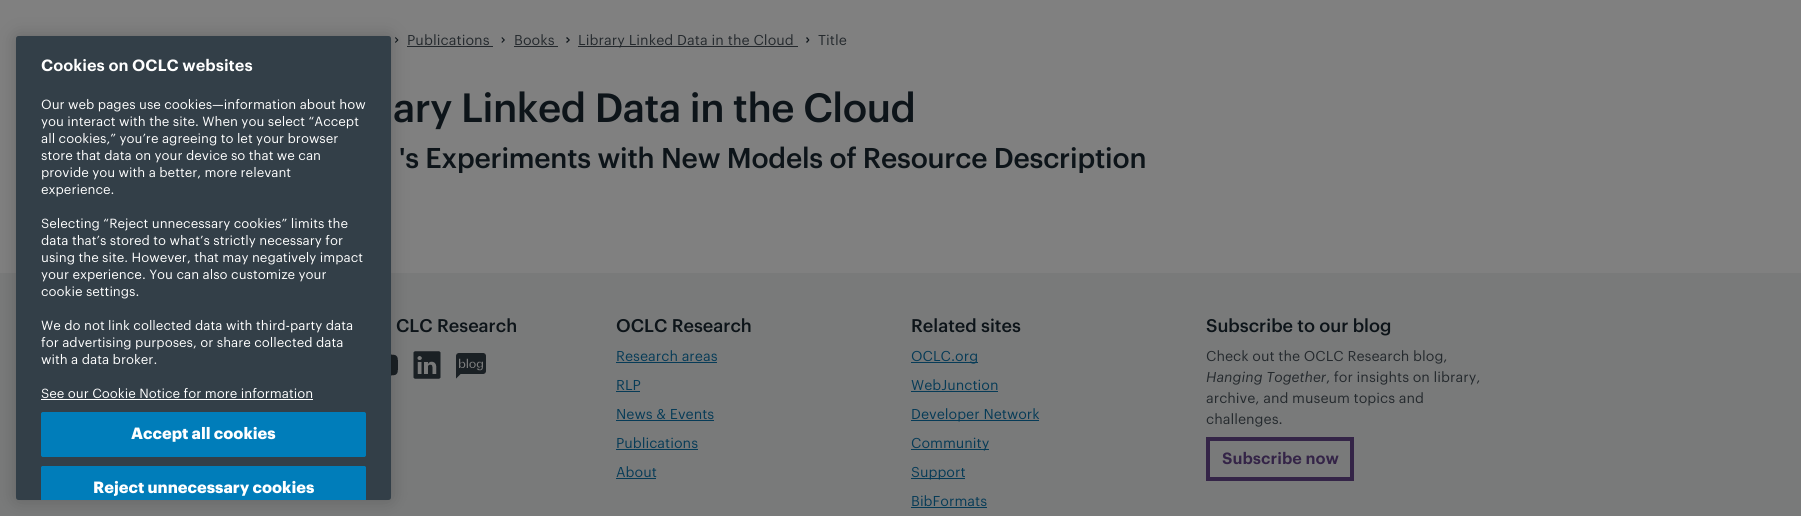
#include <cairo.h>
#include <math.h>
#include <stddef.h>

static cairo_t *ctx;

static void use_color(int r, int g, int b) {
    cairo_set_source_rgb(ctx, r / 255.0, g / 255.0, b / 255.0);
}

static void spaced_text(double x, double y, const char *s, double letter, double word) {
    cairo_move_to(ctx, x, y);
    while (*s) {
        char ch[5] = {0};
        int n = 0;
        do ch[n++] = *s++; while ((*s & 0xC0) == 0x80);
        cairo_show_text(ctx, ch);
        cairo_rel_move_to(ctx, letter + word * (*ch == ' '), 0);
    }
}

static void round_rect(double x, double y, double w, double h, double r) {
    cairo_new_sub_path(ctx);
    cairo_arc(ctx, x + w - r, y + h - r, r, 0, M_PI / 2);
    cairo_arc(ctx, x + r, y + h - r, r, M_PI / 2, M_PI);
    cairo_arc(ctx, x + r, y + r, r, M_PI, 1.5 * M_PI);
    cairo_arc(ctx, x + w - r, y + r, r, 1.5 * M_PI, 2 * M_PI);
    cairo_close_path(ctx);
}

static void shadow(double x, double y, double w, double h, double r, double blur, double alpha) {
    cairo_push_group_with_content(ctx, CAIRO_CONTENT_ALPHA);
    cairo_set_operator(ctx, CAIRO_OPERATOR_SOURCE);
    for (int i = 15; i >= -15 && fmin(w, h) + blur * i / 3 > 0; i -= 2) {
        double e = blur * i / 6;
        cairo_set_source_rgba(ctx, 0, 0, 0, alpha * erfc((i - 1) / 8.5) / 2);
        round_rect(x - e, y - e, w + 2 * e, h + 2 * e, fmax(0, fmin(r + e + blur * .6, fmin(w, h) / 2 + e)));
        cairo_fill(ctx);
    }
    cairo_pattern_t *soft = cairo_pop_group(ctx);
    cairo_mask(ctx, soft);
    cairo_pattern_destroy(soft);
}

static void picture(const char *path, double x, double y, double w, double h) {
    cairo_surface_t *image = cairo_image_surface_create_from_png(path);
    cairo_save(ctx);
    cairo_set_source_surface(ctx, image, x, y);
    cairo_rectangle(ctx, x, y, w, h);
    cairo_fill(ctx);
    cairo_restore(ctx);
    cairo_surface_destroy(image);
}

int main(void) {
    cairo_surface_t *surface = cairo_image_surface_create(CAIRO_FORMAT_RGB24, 1801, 516);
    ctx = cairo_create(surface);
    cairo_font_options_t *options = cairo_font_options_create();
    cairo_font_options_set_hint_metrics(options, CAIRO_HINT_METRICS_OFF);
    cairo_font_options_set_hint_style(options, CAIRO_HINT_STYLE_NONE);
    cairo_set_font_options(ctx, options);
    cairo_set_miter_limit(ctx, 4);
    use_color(128, 128, 128);
    cairo_paint(ctx);
    use_color(13, 20, 25);
    cairo_new_path(ctx);
    cairo_move_to(ctx, 395.5, 37);
    cairo_line_to(ctx, 398.5, 40);
    cairo_line_to(ctx, 397, 40);
    cairo_line_to(ctx, 395, 38);
    cairo_close_path(ctx);
    cairo_move_to(ctx, 398.5, 40);
    cairo_line_to(ctx, 395.5, 43);
    cairo_line_to(ctx, 395, 42);
    cairo_line_to(ctx, 397, 40);
    cairo_close_path(ctx);
    cairo_fill(ctx);
    use_color(36, 41, 45);
    cairo_rectangle(ctx, 407, 46, 86, 1);
    cairo_fill(ctx);
    use_color(121, 122, 122);
    cairo_rectangle(ctx, 0, 273, 1801, 243);
    cairo_fill(ctx);
    picture("img1.png", 391, 354, 7, 22);
    picture("img2.png", 413, 351, 28, 28);
    use_color(0, 0, 0);
    shadow(16, 36, 375, 464, 2.5, 9, 0.2);
    use_color(51, 63, 72);
    round_rect(16, 36, 375, 464, 2.5);
    cairo_fill(ctx);
    cairo_select_font_face(ctx, "Graphik SemiBold", CAIRO_FONT_SLANT_NORMAL, CAIRO_FONT_WEIGHT_NORMAL);
    cairo_set_font_size(ctx, 16);
    use_color(255, 255, 255);
    cairo_move_to(ctx, 41, 71);
    cairo_show_text(ctx, "Cookies on OCLC websites");
    cairo_select_font_face(ctx, "Graphik", CAIRO_FONT_SLANT_NORMAL, CAIRO_FONT_WEIGHT_NORMAL);
    cairo_set_font_size(ctx, 13);
    cairo_move_to(ctx, 41, 109);
    cairo_show_text(ctx, "Our web pages use cookies—information about how");
    cairo_move_to(ctx, 41, 126);
    cairo_show_text(ctx, "you interact with the site. When you select “Accept");
    cairo_move_to(ctx, 41, 143);
    cairo_show_text(ctx, "all cookies,” you’re agreeing to let your browser");
    cairo_move_to(ctx, 41, 160);
    cairo_show_text(ctx, "store that data on your device so that we can");
    cairo_move_to(ctx, 41, 177);
    cairo_show_text(ctx, "provide you with a better, more relevant");
    cairo_move_to(ctx, 41, 194);
    cairo_show_text(ctx, "experience.");
    cairo_move_to(ctx, 41, 228);
    cairo_show_text(ctx, "Selecting “Reject unnecessary cookies” limits the");
    cairo_move_to(ctx, 41, 245);
    cairo_show_text(ctx, "data that’s stored to what’s strictly necessary for");
    cairo_move_to(ctx, 41, 262);
    cairo_show_text(ctx, "using the site. However, that may negatively impact");
    cairo_move_to(ctx, 41, 279);
    cairo_show_text(ctx, "your experience. You can also customize your");
    cairo_move_to(ctx, 41, 296);
    cairo_show_text(ctx, "cookie settings.");
    cairo_move_to(ctx, 41, 330);
    cairo_show_text(ctx, "We do not link collected data with third-party data");
    cairo_move_to(ctx, 41, 347);
    cairo_show_text(ctx, "for advertising purposes, or share collected data");
    cairo_move_to(ctx, 41, 364);
    cairo_show_text(ctx, "with a data broker.");
    cairo_move_to(ctx, 41, 398);
    cairo_show_text(ctx, "See our Cookie Notice for more information");
    cairo_rectangle(ctx, 41, 399, 272, 1);
    cairo_fill(ctx);
    use_color(0, 125, 186);
    round_rect(41.5, 412.5, 324, 44, 1.5);
    cairo_fill_preserve(ctx);
    cairo_set_line_width(ctx, 1);
    cairo_stroke(ctx);
    cairo_select_font_face(ctx, "Graphik", CAIRO_FONT_SLANT_NORMAL, CAIRO_FONT_WEIGHT_BOLD);
    cairo_set_font_size(ctx, 16);
    use_color(255, 255, 255);
    cairo_move_to(ctx, 131, 439);
    cairo_show_text(ctx, "Accept all cookies");
    use_color(0, 125, 186);
    cairo_new_path(ctx);
    cairo_move_to(ctx, 43, 466);
    cairo_line_to(ctx, 364, 466);
    cairo_curve_to(ctx, 365, 466, 366, 467, 366, 468);
    cairo_line_to(ctx, 366, 500);
    cairo_line_to(ctx, 41, 500);
    cairo_line_to(ctx, 41, 468);
    cairo_curve_to(ctx, 41, 467, 42, 466, 43, 466);
    cairo_close_path(ctx);
    cairo_fill(ctx);
    cairo_new_path(ctx);
    cairo_move_to(ctx, 43, 466);
    cairo_curve_to(ctx, 42, 466, 41, 467, 41, 468);
    cairo_line_to(ctx, 41, 500);
    cairo_line_to(ctx, 42, 500);
    cairo_line_to(ctx, 42, 468);
    cairo_curve_to(ctx, 42, 467, 42, 467, 43, 467);
    cairo_line_to(ctx, 364, 467);
    cairo_curve_to(ctx, 365, 467, 365, 467, 365, 468);
    cairo_line_to(ctx, 365, 500);
    cairo_line_to(ctx, 366, 500);
    cairo_line_to(ctx, 366, 468);
    cairo_curve_to(ctx, 366, 467, 365, 466, 364, 466);
    cairo_close_path(ctx);
    cairo_fill(ctx);
    use_color(255, 255, 255);
    cairo_move_to(ctx, 93, 493);
    cairo_show_text(ctx, "Reject unnecessary cookies");
    cairo_select_font_face(ctx, "Graphik", CAIRO_FONT_SLANT_NORMAL, CAIRO_FONT_WEIGHT_NORMAL);
    cairo_set_font_size(ctx, 14);
    use_color(36, 41, 45);
    spaced_text(407, 45, "Publications", 0.05, 0);
    use_color(13, 20, 25);
    cairo_new_path(ctx);
    cairo_move_to(ctx, 502, 37);
    cairo_line_to(ctx, 505, 40);
    cairo_line_to(ctx, 503.5, 40);
    cairo_line_to(ctx, 501.5, 38);
    cairo_close_path(ctx);
    cairo_move_to(ctx, 505, 40);
    cairo_line_to(ctx, 502, 43);
    cairo_line_to(ctx, 501.5, 42);
    cairo_line_to(ctx, 503.5, 40);
    cairo_close_path(ctx);
    cairo_fill(ctx);
    use_color(36, 41, 45);
    spaced_text(514, 45, "Books", 0.05, 0);
    cairo_rectangle(ctx, 514, 46, 44, 1);
    cairo_fill(ctx);
    use_color(13, 20, 25);
    cairo_new_path(ctx);
    cairo_move_to(ctx, 567, 37);
    cairo_line_to(ctx, 570, 40);
    cairo_line_to(ctx, 568.5, 40);
    cairo_line_to(ctx, 566, 38);
    cairo_close_path(ctx);
    cairo_move_to(ctx, 570, 40);
    cairo_line_to(ctx, 567, 43);
    cairo_line_to(ctx, 566, 42);
    cairo_line_to(ctx, 568.5, 40);
    cairo_close_path(ctx);
    cairo_fill(ctx);
    use_color(36, 41, 45);
    cairo_rectangle(ctx, 578, 46, 220, 1);
    cairo_fill(ctx);
    spaced_text(578, 45, "Library Linked Data in the Cloud", 0.05, 0);
    use_color(13, 20, 25);
    cairo_new_path(ctx);
    cairo_move_to(ctx, 807, 37);
    cairo_line_to(ctx, 809.5, 40);
    cairo_line_to(ctx, 808, 40);
    cairo_line_to(ctx, 806, 38);
    cairo_close_path(ctx);
    cairo_move_to(ctx, 809.5, 40);
    cairo_line_to(ctx, 807, 43);
    cairo_line_to(ctx, 806, 42);
    cairo_line_to(ctx, 808, 40);
    cairo_close_path(ctx);
    cairo_fill(ctx);
    use_color(36, 41, 45);
    spaced_text(818, 45, "Title", 0.05, 0);
    cairo_select_font_face(ctx, "Graphik Medium", CAIRO_FONT_SLANT_NORMAL, CAIRO_FONT_WEIGHT_NORMAL);
    cairo_set_font_size(ctx, 40);
    use_color(13, 20, 25);
    spaced_text(393, 122, "ary Linked Data in the Cloud", -0.6, 0);
    cairo_set_font_size(ctx, 28);
    spaced_text(399, 168, "'s Experiments with New Models of Resource Description", -0.3, 0);
    cairo_set_font_size(ctx, 18);
    spaced_text(396, 332, "CLC Research", -0.05, 0);
    picture("img3.png", 456, 353, 30, 26);
    spaced_text(616, 332, "OCLC Research", -0.05, 0);
    cairo_select_font_face(ctx, "Graphik", CAIRO_FONT_SLANT_NORMAL, CAIRO_FONT_WEIGHT_NORMAL);
    cairo_set_font_size(ctx, 14);
    use_color(6, 59, 87);
    cairo_move_to(ctx, 616, 361);
    cairo_show_text(ctx, "Research areas");
    cairo_rectangle(ctx, 616, 362, 101, 1);
    cairo_fill(ctx);
    cairo_move_to(ctx, 616, 390);
    cairo_show_text(ctx, "RLP");
    cairo_rectangle(ctx, 616, 391, 24, 1);
    cairo_fill(ctx);
    cairo_move_to(ctx, 616, 419);
    cairo_show_text(ctx, "News & Events");
    cairo_rectangle(ctx, 616, 420, 98, 1);
    cairo_fill(ctx);
    cairo_move_to(ctx, 616, 448);
    cairo_show_text(ctx, "Publications");
    cairo_rectangle(ctx, 616, 449, 82, 1);
    cairo_fill(ctx);
    cairo_move_to(ctx, 616, 477);
    cairo_show_text(ctx, "About");
    cairo_rectangle(ctx, 616, 478, 40, 1);
    cairo_fill(ctx);
    cairo_select_font_face(ctx, "Graphik Medium", CAIRO_FONT_SLANT_NORMAL, CAIRO_FONT_WEIGHT_NORMAL);
    cairo_set_font_size(ctx, 18);
    use_color(13, 20, 25);
    spaced_text(911, 332, "Related sites", -0.05, 0);
    use_color(6, 59, 87);
    cairo_rectangle(ctx, 911, 362, 67, 1);
    cairo_fill(ctx);
    cairo_select_font_face(ctx, "Graphik", CAIRO_FONT_SLANT_NORMAL, CAIRO_FONT_WEIGHT_NORMAL);
    cairo_set_font_size(ctx, 14);
    cairo_move_to(ctx, 911, 361);
    cairo_show_text(ctx, "OCLC.org");
    cairo_move_to(ctx, 911, 390);
    cairo_show_text(ctx, "WebJunction");
    cairo_rectangle(ctx, 911, 391, 87, 1);
    cairo_fill(ctx);
    cairo_rectangle(ctx, 911, 420, 128, 1);
    cairo_fill(ctx);
    cairo_move_to(ctx, 911, 419);
    cairo_show_text(ctx, "Developer Network");
    cairo_rectangle(ctx, 911, 449, 78, 1);
    cairo_fill(ctx);
    cairo_move_to(ctx, 911, 448);
    cairo_show_text(ctx, "Community");
    cairo_rectangle(ctx, 911, 478, 54, 1);
    cairo_fill(ctx);
    cairo_move_to(ctx, 911, 477);
    cairo_show_text(ctx, "Support");
    cairo_move_to(ctx, 911, 506);
    cairo_show_text(ctx, "BibFormats");
    cairo_rectangle(ctx, 911, 507, 76, 1);
    cairo_fill(ctx);
    cairo_select_font_face(ctx, "Graphik Medium", CAIRO_FONT_SLANT_NORMAL, CAIRO_FONT_WEIGHT_NORMAL);
    cairo_set_font_size(ctx, 18);
    use_color(13, 20, 25);
    spaced_text(1206, 332, "Subscribe to our blog", -0.05, 0);
    cairo_select_font_face(ctx, "Graphik", CAIRO_FONT_SLANT_NORMAL, CAIRO_FONT_WEIGHT_NORMAL);
    cairo_set_font_size(ctx, 14);
    use_color(36, 41, 45);
    cairo_move_to(ctx, 1206, 361);
    cairo_show_text(ctx, "Check out the OCLC Research blog,");
    cairo_select_font_face(ctx, "Graphik", CAIRO_FONT_SLANT_ITALIC, CAIRO_FONT_WEIGHT_NORMAL);
    cairo_move_to(ctx, 1206, 382);
    cairo_show_text(ctx, "Hanging Together");
    cairo_select_font_face(ctx, "Graphik", CAIRO_FONT_SLANT_NORMAL, CAIRO_FONT_WEIGHT_NORMAL);
    cairo_move_to(ctx, 1326, 382);
    cairo_show_text(ctx, ", for insights on library,");
    cairo_move_to(ctx, 1206, 403);
    cairo_show_text(ctx, "archive, and museum topics and");
    cairo_move_to(ctx, 1206, 424);
    cairo_show_text(ctx, "challenges.");
    cairo_rectangle(ctx, 1208, 439, 144, 40);
    use_color(52, 36, 71);
    cairo_set_line_width(ctx, 4);
    cairo_stroke(ctx);
    cairo_select_font_face(ctx, "Graphik SemiBold", CAIRO_FONT_SLANT_NORMAL, CAIRO_FONT_WEIGHT_NORMAL);
    cairo_set_font_size(ctx, 16);
    cairo_move_to(ctx, 1222, 464);
    cairo_show_text(ctx, "Subscribe now");
    cairo_surface_write_to_png(surface, "result.png");
    cairo_font_options_destroy(options);
    cairo_destroy(ctx);
    cairo_surface_destroy(surface);
    return 0;
}
